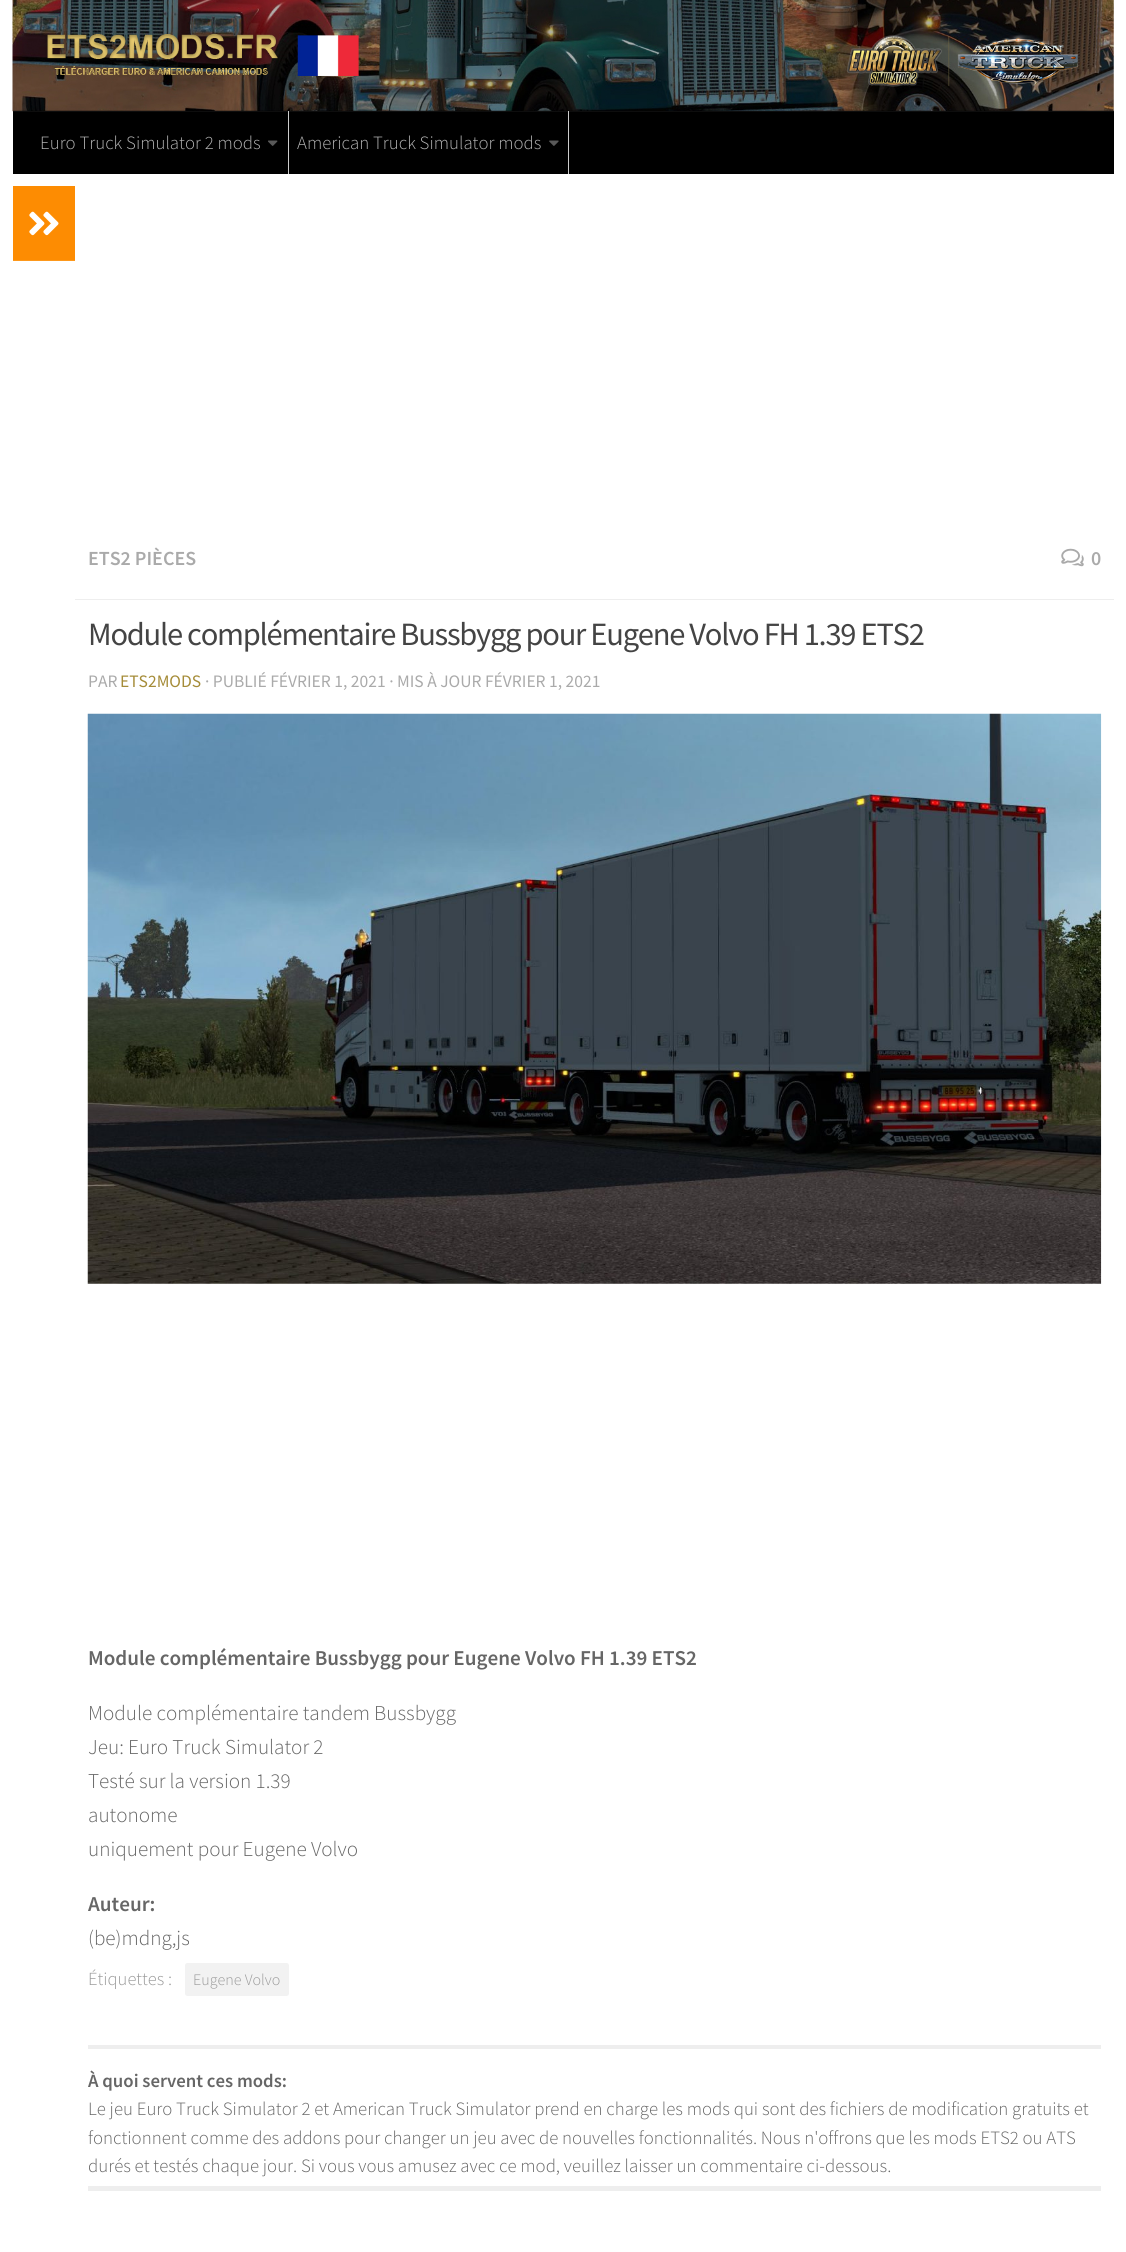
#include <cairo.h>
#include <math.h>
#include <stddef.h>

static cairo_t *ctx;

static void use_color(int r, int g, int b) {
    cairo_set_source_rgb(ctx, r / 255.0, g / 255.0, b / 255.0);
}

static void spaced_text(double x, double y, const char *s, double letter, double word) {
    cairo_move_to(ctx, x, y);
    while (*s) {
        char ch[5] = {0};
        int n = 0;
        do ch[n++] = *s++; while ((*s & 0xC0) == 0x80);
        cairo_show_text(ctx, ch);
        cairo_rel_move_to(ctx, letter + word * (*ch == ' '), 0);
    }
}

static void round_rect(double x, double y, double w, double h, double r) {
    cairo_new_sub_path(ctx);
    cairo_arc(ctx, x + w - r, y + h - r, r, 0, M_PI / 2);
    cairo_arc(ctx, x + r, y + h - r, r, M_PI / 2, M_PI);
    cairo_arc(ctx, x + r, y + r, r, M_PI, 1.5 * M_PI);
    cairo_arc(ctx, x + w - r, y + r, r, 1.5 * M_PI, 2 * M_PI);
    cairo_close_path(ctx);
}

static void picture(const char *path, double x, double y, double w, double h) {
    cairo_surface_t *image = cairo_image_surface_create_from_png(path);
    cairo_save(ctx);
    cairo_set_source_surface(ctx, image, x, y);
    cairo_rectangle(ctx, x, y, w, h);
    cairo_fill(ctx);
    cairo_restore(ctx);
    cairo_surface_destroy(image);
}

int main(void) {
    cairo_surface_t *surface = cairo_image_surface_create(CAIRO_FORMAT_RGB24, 1126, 2252);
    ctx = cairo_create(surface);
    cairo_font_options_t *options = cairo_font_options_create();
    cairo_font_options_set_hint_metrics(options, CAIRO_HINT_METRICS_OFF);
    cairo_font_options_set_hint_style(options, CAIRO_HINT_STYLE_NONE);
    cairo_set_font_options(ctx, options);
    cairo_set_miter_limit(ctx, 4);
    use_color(255, 255, 255);
    cairo_paint(ctx);
    picture("img1.png", 12, 0, 1102, 112);
    cairo_set_source_rgba(ctx, 0, 0, 0, 0.2);
    cairo_new_path(ctx);
    cairo_move_to(ctx, 13, 110);
    cairo_line_to(ctx, 13, 111);
    cairo_line_to(ctx, 1114, 111);
    cairo_line_to(ctx, 1114, 173);
    cairo_line_to(ctx, 1114, 110);
    cairo_close_path(ctx);
    cairo_fill(ctx);
    use_color(0, 0, 0);
    cairo_rectangle(ctx, 13, 112, 1101, 62);
    cairo_fill(ctx);
    use_color(13, 13, 13);
    cairo_rectangle(ctx, 13, 111, 1101, 1);
    cairo_fill(ctx);
    use_color(204, 204, 204);
    cairo_rectangle(ctx, 288, 111, 1, 63);
    cairo_fill(ctx);
    cairo_select_font_face(ctx, "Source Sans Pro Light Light", CAIRO_FONT_SLANT_NORMAL, CAIRO_FONT_WEIGHT_NORMAL);
    cairo_set_font_size(ctx, 18.8);
    use_color(179, 179, 179);
    cairo_move_to(ctx, 40, 149);
    cairo_show_text(ctx, "Euro Truck Simulator 2 mods");
    picture("img2.png", 268, 140, 10, 6);
    use_color(204, 204, 204);
    cairo_rectangle(ctx, 568, 111, 1, 63);
    cairo_fill(ctx);
    use_color(179, 179, 179);
    cairo_move_to(ctx, 297, 149);
    cairo_show_text(ctx, "American Truck Simulator mods");
    picture("img3.png", 549, 140, 10, 6);
    use_color(253, 140, 2);
    cairo_rectangle(ctx, 13, 186, 62, 74);
    cairo_fill(ctx);
    use_color(253, 152, 27);
    cairo_rectangle(ctx, 13, 260, 62, 1);
    cairo_fill(ctx);
    picture("img4.png", 29, 211, 30, 25);
    use_color(238, 238, 238);
    cairo_rectangle(ctx, 75, 599, 1039, 1);
    cairo_fill(ctx);
    cairo_select_font_face(ctx, "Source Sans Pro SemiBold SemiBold", CAIRO_FONT_SLANT_NORMAL, CAIRO_FONT_WEIGHT_NORMAL);
    cairo_set_font_size(ctx, 20);
    use_color(170, 170, 170);
    cairo_move_to(ctx, 88, 565);
    cairo_show_text(ctx, "ETS2 PIÈCES");
    picture("img5.png", 1061, 548, 23, 19);
    cairo_move_to(ctx, 1091, 565);
    cairo_show_text(ctx, "0");
    cairo_select_font_face(ctx, "Source Sans Pro", CAIRO_FONT_SLANT_NORMAL, CAIRO_FONT_WEIGHT_NORMAL);
    cairo_set_font_size(ctx, 32.5);
    use_color(68, 68, 68);
    spaced_text(88, 645, "Module complémentaire Bussbygg pour Eugene Volvo FH 1.39 ETS2", -1.25, 0);
    cairo_set_font_size(ctx, 17.5);
    use_color(170, 170, 170);
    cairo_move_to(ctx, 88, 687);
    cairo_show_text(ctx, "PAR");
    use_color(165, 140, 56);
    cairo_move_to(ctx, 120, 687);
    cairo_show_text(ctx, "ETS2MODS");
    use_color(170, 170, 170);
    cairo_move_to(ctx, 205, 687);
    cairo_show_text(ctx, "· PUBLIÉ FÉVRIER 1, 2021 · MIS À JOUR FÉVRIER 1, 2021");
    picture("img6.png", 87, 713, 1015, 571);
    cairo_select_font_face(ctx, "Source Sans Pro SemiBold SemiBold", CAIRO_FONT_SLANT_NORMAL, CAIRO_FONT_WEIGHT_NORMAL);
    cairo_set_font_size(ctx, 21.15);
    use_color(102, 102, 102);
    cairo_move_to(ctx, 88, 1665);
    cairo_show_text(ctx, "Module complémentaire Bussbygg pour Eugene Volvo FH 1.39 ETS2");
    cairo_select_font_face(ctx, "Source Sans Pro Light Light", CAIRO_FONT_SLANT_NORMAL, CAIRO_FONT_WEIGHT_NORMAL);
    cairo_move_to(ctx, 88, 1720);
    cairo_show_text(ctx, "Module complémentaire tandem Bussbygg");
    cairo_move_to(ctx, 88, 1754);
    cairo_show_text(ctx, "Jeu: Euro Truck Simulator 2");
    cairo_move_to(ctx, 88, 1788);
    cairo_show_text(ctx, "Testé sur la version 1.39");
    cairo_move_to(ctx, 88, 1822);
    cairo_show_text(ctx, "autonome");
    cairo_move_to(ctx, 88, 1856);
    cairo_show_text(ctx, "uniquement pour Eugene Volvo");
    cairo_select_font_face(ctx, "Source Sans Pro SemiBold SemiBold", CAIRO_FONT_SLANT_NORMAL, CAIRO_FONT_WEIGHT_NORMAL);
    cairo_move_to(ctx, 88, 1911);
    cairo_show_text(ctx, "Auteur:");
    cairo_select_font_face(ctx, "Source Sans Pro Light Light", CAIRO_FONT_SLANT_NORMAL, CAIRO_FONT_WEIGHT_NORMAL);
    cairo_move_to(ctx, 88, 1945);
    cairo_show_text(ctx, "(be)mdng,js");
    cairo_set_font_size(ctx, 18.5);
    use_color(153, 153, 153);
    cairo_move_to(ctx, 88, 1985);
    cairo_show_text(ctx, "Étiquettes :");
    use_color(242, 242, 242);
    round_rect(185, 1963, 104, 33, 2.5);
    cairo_fill(ctx);
    cairo_set_font_size(ctx, 16);
    use_color(153, 153, 153);
    cairo_move_to(ctx, 193, 1985);
    cairo_show_text(ctx, "Eugene Volvo");
    use_color(238, 238, 238);
    cairo_rectangle(ctx, 88, 2045, 1013, 4);
    cairo_fill(ctx);
    cairo_select_font_face(ctx, "Source Sans Pro SemiBold SemiBold", CAIRO_FONT_SLANT_NORMAL, CAIRO_FONT_WEIGHT_NORMAL);
    cairo_set_font_size(ctx, 18.8);
    use_color(102, 102, 102);
    cairo_move_to(ctx, 88, 2087);
    cairo_show_text(ctx, "À quoi servent ces mods:");
    cairo_select_font_face(ctx, "Source Sans Pro Light Light", CAIRO_FONT_SLANT_NORMAL, CAIRO_FONT_WEIGHT_NORMAL);
    cairo_move_to(ctx, 88, 2115);
    cairo_show_text(ctx, "Le jeu Euro Truck Simulator 2 et American Truck Simulator prend en charge les mods qui sont des fichiers de modification gratuits et");
    cairo_move_to(ctx, 88, 2144);
    cairo_show_text(ctx, "fonctionnent comme des addons pour changer un jeu avec de nouvelles fonctionnalités. Nous n'offrons que les mods ETS2 ou ATS");
    cairo_move_to(ctx, 88, 2172);
    cairo_show_text(ctx, "durés et testés chaque jour. Si vous vous amusez avec ce mod, veuillez laisser un commentaire ci-dessous.");
    use_color(238, 238, 238);
    cairo_rectangle(ctx, 88, 2186, 1013, 5);
    cairo_fill(ctx);
    cairo_surface_write_to_png(surface, "result.png");
    cairo_font_options_destroy(options);
    cairo_destroy(ctx);
    cairo_surface_destroy(surface);
    return 0;
}
